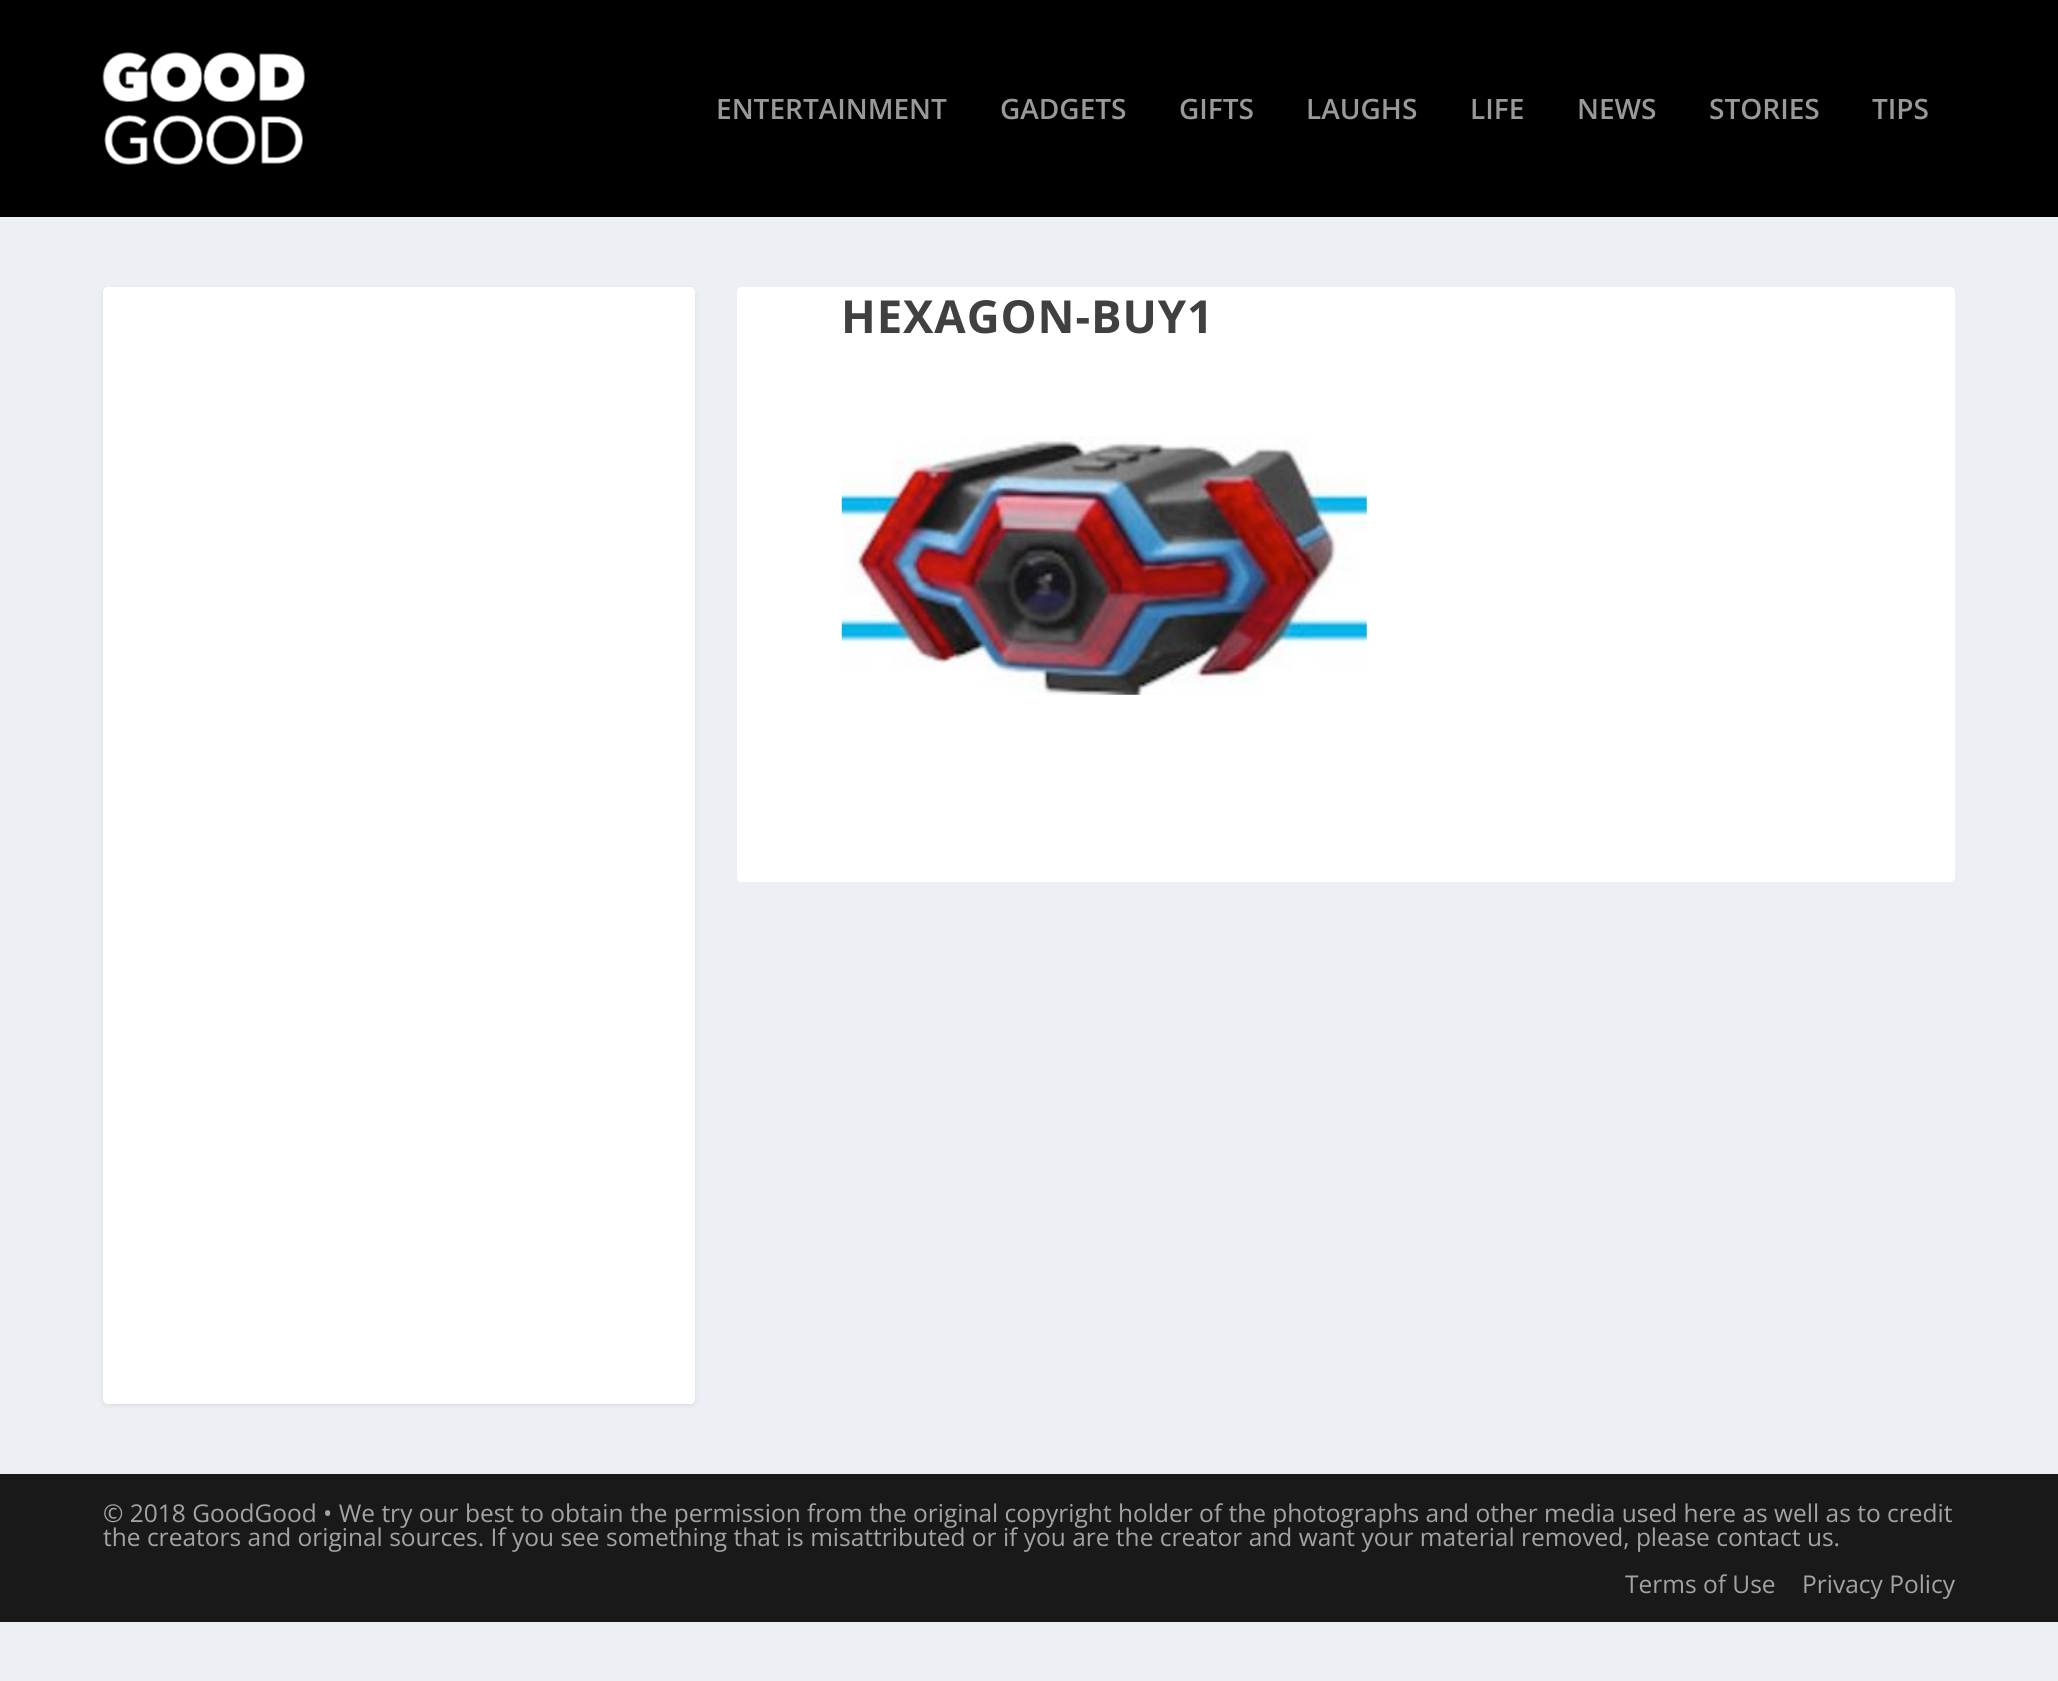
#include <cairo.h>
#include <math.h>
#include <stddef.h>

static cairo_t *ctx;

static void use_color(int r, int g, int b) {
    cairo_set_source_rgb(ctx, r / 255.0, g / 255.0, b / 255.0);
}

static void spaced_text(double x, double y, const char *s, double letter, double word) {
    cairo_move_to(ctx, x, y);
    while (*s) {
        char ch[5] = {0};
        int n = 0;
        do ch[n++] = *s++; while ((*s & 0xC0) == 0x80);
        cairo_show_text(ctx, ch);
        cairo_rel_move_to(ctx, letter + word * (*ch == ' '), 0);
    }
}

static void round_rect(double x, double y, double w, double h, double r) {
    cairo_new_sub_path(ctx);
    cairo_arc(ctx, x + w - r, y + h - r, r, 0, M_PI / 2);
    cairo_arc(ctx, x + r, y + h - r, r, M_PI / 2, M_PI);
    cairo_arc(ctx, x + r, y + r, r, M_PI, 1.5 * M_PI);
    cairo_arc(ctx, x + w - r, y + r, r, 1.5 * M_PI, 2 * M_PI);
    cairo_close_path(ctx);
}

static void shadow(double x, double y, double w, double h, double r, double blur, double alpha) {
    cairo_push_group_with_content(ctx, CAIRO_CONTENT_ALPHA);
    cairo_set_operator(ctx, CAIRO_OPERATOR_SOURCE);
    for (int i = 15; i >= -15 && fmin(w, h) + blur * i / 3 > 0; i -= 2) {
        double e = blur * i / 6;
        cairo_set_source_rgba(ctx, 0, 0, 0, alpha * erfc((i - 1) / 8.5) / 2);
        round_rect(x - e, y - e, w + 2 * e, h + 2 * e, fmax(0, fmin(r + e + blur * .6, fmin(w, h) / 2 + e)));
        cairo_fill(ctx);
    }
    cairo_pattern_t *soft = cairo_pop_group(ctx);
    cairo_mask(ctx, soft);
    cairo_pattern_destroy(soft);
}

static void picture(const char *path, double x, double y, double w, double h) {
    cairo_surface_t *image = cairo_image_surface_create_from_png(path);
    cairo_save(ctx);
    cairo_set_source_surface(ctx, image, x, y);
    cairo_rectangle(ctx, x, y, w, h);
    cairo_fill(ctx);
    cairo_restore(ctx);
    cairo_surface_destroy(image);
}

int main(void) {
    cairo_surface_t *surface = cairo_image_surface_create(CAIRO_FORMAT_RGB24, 2058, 1681);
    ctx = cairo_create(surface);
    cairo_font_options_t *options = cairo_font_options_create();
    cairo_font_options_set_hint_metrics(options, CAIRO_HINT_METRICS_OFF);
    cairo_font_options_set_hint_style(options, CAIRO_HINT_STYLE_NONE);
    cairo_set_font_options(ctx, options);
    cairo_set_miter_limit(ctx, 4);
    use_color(236, 240, 245);
    cairo_paint(ctx);
    use_color(0, 0, 0);
    cairo_rectangle(ctx, 0, 0, 2058, 217);
    cairo_fill(ctx);
    picture("img1.png", 102, 52, 203, 113);
    cairo_select_font_face(ctx, "Open Sans SemiBold", CAIRO_FONT_SLANT_NORMAL, CAIRO_FONT_WEIGHT_NORMAL);
    cairo_set_font_size(ctx, 28);
    use_color(153, 153, 153);
    cairo_move_to(ctx, 716, 119);
    cairo_show_text(ctx, "ENTERTAINMENT");
    cairo_move_to(ctx, 1000, 119);
    cairo_show_text(ctx, "GADGETS");
    cairo_move_to(ctx, 1179, 119);
    cairo_show_text(ctx, "GIFTS");
    cairo_move_to(ctx, 1306, 119);
    cairo_show_text(ctx, "LAUGHS");
    cairo_move_to(ctx, 1470, 119);
    cairo_show_text(ctx, "LIFE");
    cairo_move_to(ctx, 1577, 119);
    cairo_show_text(ctx, "NEWS");
    cairo_move_to(ctx, 1709, 119);
    cairo_show_text(ctx, "STORIES");
    cairo_move_to(ctx, 1872, 119);
    cairo_show_text(ctx, "TIPS");
    use_color(0, 0, 0);
    shadow(103, 289, 592, 1116, 5, 2.5, 0.1);
    use_color(255, 255, 255);
    round_rect(103, 287, 592, 1117, 5);
    cairo_fill(ctx);
    round_rect(737, 287, 1218, 595, 5);
    cairo_fill(ctx);
    cairo_select_font_face(ctx, "Open Sans", CAIRO_FONT_SLANT_NORMAL, CAIRO_FONT_WEIGHT_BOLD);
    cairo_set_font_size(ctx, 45.5);
    use_color(64, 64, 64);
    spaced_text(841, 333, "HEXAGON-BUY1", 0.9, 0);
    picture("img2.png", 841, 436, 526, 259);
    use_color(25, 25, 25);
    cairo_rectangle(ctx, 0, 1474, 2058, 148);
    cairo_fill(ctx);
    cairo_select_font_face(ctx, "Open Sans", CAIRO_FONT_SLANT_NORMAL, CAIRO_FONT_WEIGHT_NORMAL);
    cairo_set_font_size(ctx, 24.5);
    use_color(163, 163, 163);
    cairo_move_to(ctx, 103, 1522);
    cairo_show_text(ctx, "© 2018 GoodGood • We try our best to obtain the permission from the original copyright holder of the photographs and other media used here as well as to credit");
    cairo_move_to(ctx, 103, 1546);
    cairo_show_text(ctx, "the creators and original sources. If you see something that is misattributed or if you are the creator and want your material removed, please contact us.");
    cairo_move_to(ctx, 1625, 1593);
    cairo_show_text(ctx, "Terms of Use");
    cairo_move_to(ctx, 1802, 1593);
    cairo_show_text(ctx, "Privacy Policy");
    cairo_surface_write_to_png(surface, "result.png");
    cairo_font_options_destroy(options);
    cairo_destroy(ctx);
    cairo_surface_destroy(surface);
    return 0;
}
